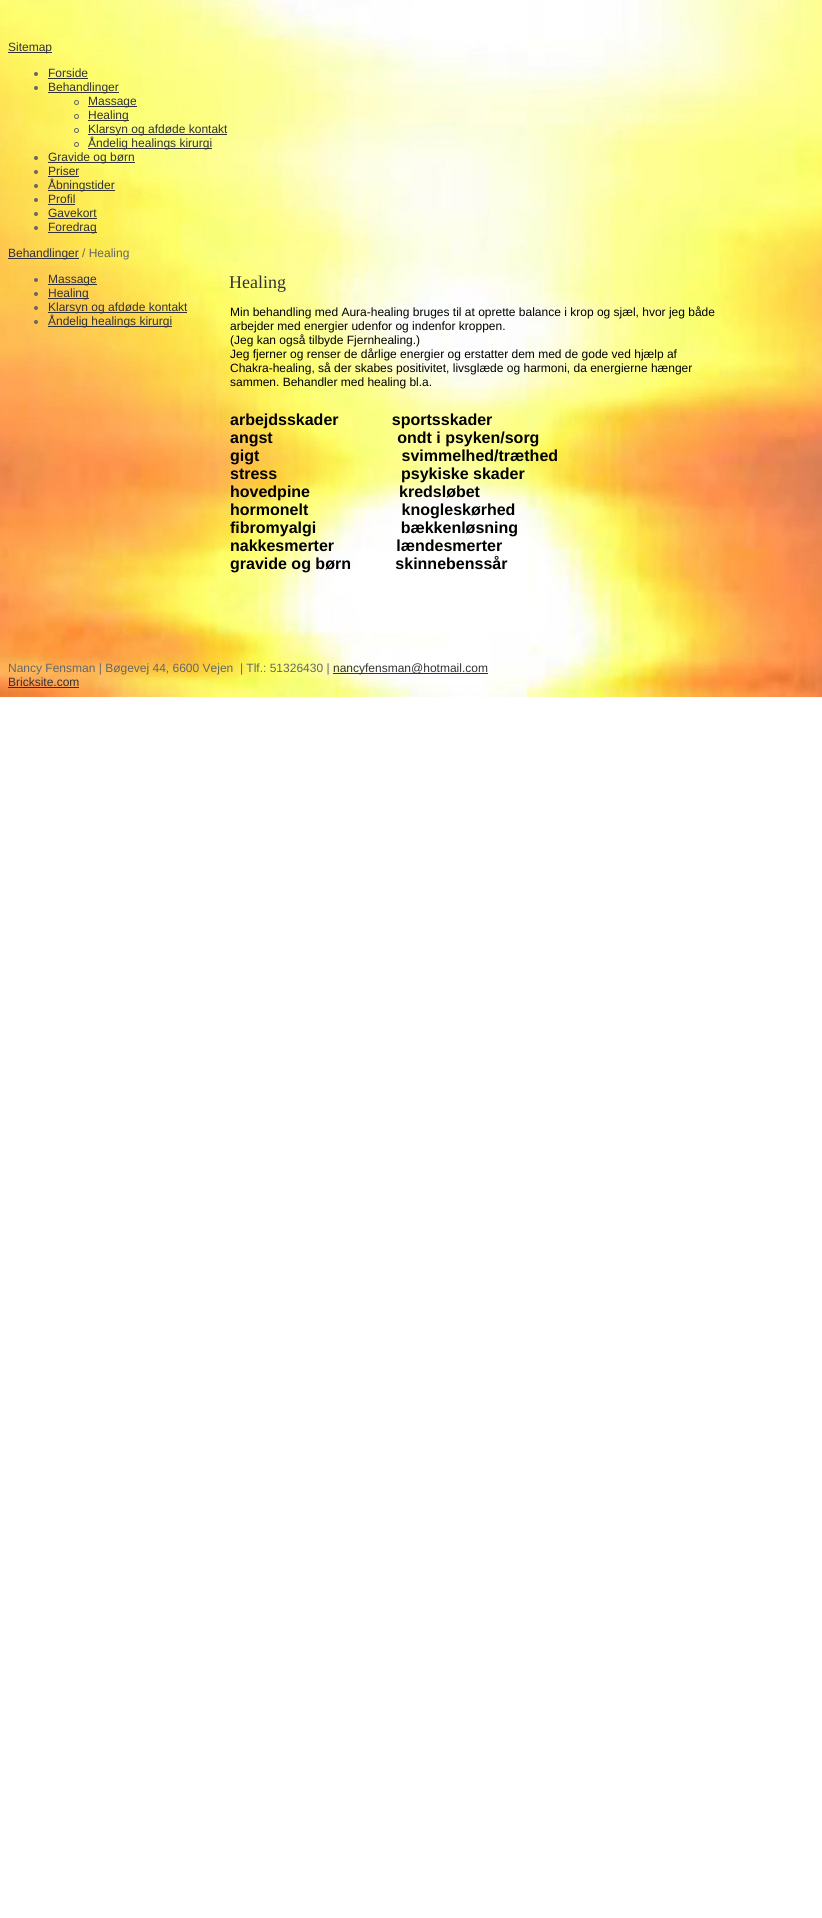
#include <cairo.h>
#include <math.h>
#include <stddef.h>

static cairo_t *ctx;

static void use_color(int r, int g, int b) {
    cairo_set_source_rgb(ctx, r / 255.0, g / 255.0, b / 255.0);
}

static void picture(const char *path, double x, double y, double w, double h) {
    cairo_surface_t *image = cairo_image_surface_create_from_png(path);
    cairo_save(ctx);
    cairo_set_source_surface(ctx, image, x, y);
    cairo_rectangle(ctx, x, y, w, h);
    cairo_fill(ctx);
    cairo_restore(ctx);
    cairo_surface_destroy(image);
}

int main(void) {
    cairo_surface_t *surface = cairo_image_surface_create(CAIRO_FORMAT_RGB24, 822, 1918);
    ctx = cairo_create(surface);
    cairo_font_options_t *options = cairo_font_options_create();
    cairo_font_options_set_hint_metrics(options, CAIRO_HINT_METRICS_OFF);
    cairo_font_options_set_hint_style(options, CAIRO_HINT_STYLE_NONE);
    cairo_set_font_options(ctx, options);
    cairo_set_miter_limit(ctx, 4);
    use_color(255, 255, 255);
    cairo_paint(ctx);
    picture("img1.png", 0, 0, 822, 697);
    use_color(51, 51, 51);
    cairo_rectangle(ctx, 8, 52, 44, 1);
    cairo_fill(ctx);
    cairo_select_font_face(ctx, "Liberation Sans", CAIRO_FONT_SLANT_NORMAL, CAIRO_FONT_WEIGHT_NORMAL);
    cairo_set_font_size(ctx, 12);
    cairo_move_to(ctx, 8, 51);
    cairo_show_text(ctx, "Sitemap");
    use_color(102, 102, 102);
    cairo_new_path(ctx);
    cairo_arc(ctx, 36, 74, 2, 0, 2 * M_PI);
    cairo_fill(ctx);
    use_color(51, 51, 51);
    cairo_move_to(ctx, 48, 77);
    cairo_show_text(ctx, "Forside");
    cairo_rectangle(ctx, 48, 78, 40, 1);
    cairo_fill(ctx);
    use_color(102, 102, 102);
    cairo_arc(ctx, 36, 88, 2, 0, 2 * M_PI);
    cairo_fill(ctx);
    use_color(51, 51, 51);
    cairo_rectangle(ctx, 48, 92, 71, 1);
    cairo_fill(ctx);
    cairo_move_to(ctx, 48, 91);
    cairo_show_text(ctx, "Behandlinger");
    cairo_new_path(ctx);
    cairo_arc(ctx, 76.5, 102.5, 2, 0, 2 * M_PI);
    use_color(102, 102, 102);
    cairo_set_line_width(ctx, 1);
    cairo_stroke(ctx);
    use_color(51, 51, 51);
    cairo_rectangle(ctx, 88, 106, 49, 1);
    cairo_fill(ctx);
    cairo_move_to(ctx, 88, 105);
    cairo_show_text(ctx, "Massage");
    cairo_new_path(ctx);
    cairo_arc(ctx, 76.5, 116.5, 2, 0, 2 * M_PI);
    use_color(102, 102, 102);
    cairo_stroke(ctx);
    use_color(51, 51, 51);
    cairo_rectangle(ctx, 88, 120, 41, 1);
    cairo_fill(ctx);
    cairo_move_to(ctx, 88, 119);
    cairo_show_text(ctx, "Healing");
    cairo_new_path(ctx);
    cairo_arc(ctx, 76.5, 130.5, 2, 0, 2 * M_PI);
    use_color(102, 102, 102);
    cairo_stroke(ctx);
    use_color(51, 51, 51);
    cairo_rectangle(ctx, 88, 134, 139, 1);
    cairo_fill(ctx);
    cairo_move_to(ctx, 88, 133);
    cairo_show_text(ctx, "Klarsyn og afdøde kontakt");
    cairo_new_path(ctx);
    cairo_arc(ctx, 76.5, 144.5, 2, 0, 2 * M_PI);
    use_color(102, 102, 102);
    cairo_stroke(ctx);
    use_color(51, 51, 51);
    cairo_rectangle(ctx, 88, 148, 124, 1);
    cairo_fill(ctx);
    cairo_move_to(ctx, 88, 147);
    cairo_show_text(ctx, "Åndelig healings kirurgi");
    use_color(102, 102, 102);
    cairo_new_path(ctx);
    cairo_arc(ctx, 36, 158, 2, 0, 2 * M_PI);
    cairo_fill(ctx);
    use_color(51, 51, 51);
    cairo_rectangle(ctx, 48, 162, 87, 1);
    cairo_fill(ctx);
    cairo_move_to(ctx, 48, 161);
    cairo_show_text(ctx, "Gravide og børn");
    use_color(102, 102, 102);
    cairo_new_path(ctx);
    cairo_arc(ctx, 36, 172, 2, 0, 2 * M_PI);
    cairo_fill(ctx);
    use_color(51, 51, 51);
    cairo_move_to(ctx, 48, 175);
    cairo_show_text(ctx, "Priser");
    cairo_rectangle(ctx, 48, 176, 31, 1);
    cairo_fill(ctx);
    use_color(102, 102, 102);
    cairo_arc(ctx, 36, 186, 2, 0, 2 * M_PI);
    cairo_fill(ctx);
    use_color(51, 51, 51);
    cairo_rectangle(ctx, 48, 190, 67, 1);
    cairo_fill(ctx);
    cairo_move_to(ctx, 48, 189);
    cairo_show_text(ctx, "Åbningstider");
    use_color(102, 102, 102);
    cairo_new_path(ctx);
    cairo_arc(ctx, 36, 200, 2, 0, 2 * M_PI);
    cairo_fill(ctx);
    use_color(51, 51, 51);
    cairo_move_to(ctx, 48, 203);
    cairo_show_text(ctx, "Profil");
    cairo_rectangle(ctx, 48, 204, 27, 1);
    cairo_fill(ctx);
    use_color(102, 102, 102);
    cairo_arc(ctx, 36, 214, 2, 0, 2 * M_PI);
    cairo_fill(ctx);
    use_color(51, 51, 51);
    cairo_move_to(ctx, 48, 217);
    cairo_show_text(ctx, "Gavekort");
    cairo_rectangle(ctx, 48, 218, 49, 1);
    cairo_fill(ctx);
    use_color(102, 102, 102);
    cairo_arc(ctx, 36, 228, 2, 0, 2 * M_PI);
    cairo_fill(ctx);
    use_color(51, 51, 51);
    cairo_rectangle(ctx, 48, 232, 49, 1);
    cairo_fill(ctx);
    cairo_move_to(ctx, 48, 231);
    cairo_show_text(ctx, "Foredrag");
    cairo_rectangle(ctx, 8, 258, 71, 1);
    cairo_fill(ctx);
    cairo_move_to(ctx, 8, 257);
    cairo_show_text(ctx, "Behandlinger");
    use_color(102, 102, 102);
    cairo_move_to(ctx, 82, 257);
    cairo_show_text(ctx, "/ Healing");
    cairo_new_path(ctx);
    cairo_arc(ctx, 36, 280, 2, 0, 2 * M_PI);
    cairo_fill(ctx);
    use_color(51, 51, 51);
    cairo_rectangle(ctx, 48, 284, 49, 1);
    cairo_fill(ctx);
    cairo_move_to(ctx, 48, 283);
    cairo_show_text(ctx, "Massage");
    use_color(102, 102, 102);
    cairo_new_path(ctx);
    cairo_arc(ctx, 36, 294, 2, 0, 2 * M_PI);
    cairo_fill(ctx);
    use_color(51, 51, 51);
    cairo_rectangle(ctx, 48, 298, 41, 1);
    cairo_fill(ctx);
    cairo_move_to(ctx, 48, 297);
    cairo_show_text(ctx, "Healing");
    use_color(102, 102, 102);
    cairo_new_path(ctx);
    cairo_arc(ctx, 36, 308, 2, 0, 2 * M_PI);
    cairo_fill(ctx);
    use_color(51, 51, 51);
    cairo_rectangle(ctx, 48, 312, 139, 1);
    cairo_fill(ctx);
    cairo_move_to(ctx, 48, 311);
    cairo_show_text(ctx, "Klarsyn og afdøde kontakt");
    use_color(102, 102, 102);
    cairo_new_path(ctx);
    cairo_arc(ctx, 36, 322, 2, 0, 2 * M_PI);
    cairo_fill(ctx);
    use_color(51, 51, 51);
    cairo_rectangle(ctx, 48, 326, 124, 1);
    cairo_fill(ctx);
    cairo_move_to(ctx, 48, 325);
    cairo_show_text(ctx, "Åndelig healings kirurgi");
    cairo_select_font_face(ctx, "Liberation Serif", CAIRO_FONT_SLANT_NORMAL, CAIRO_FONT_WEIGHT_NORMAL);
    cairo_set_font_size(ctx, 18);
    cairo_move_to(ctx, 229, 288);
    cairo_show_text(ctx, "Healing");
    cairo_select_font_face(ctx, "Liberation Sans", CAIRO_FONT_SLANT_NORMAL, CAIRO_FONT_WEIGHT_NORMAL);
    cairo_set_font_size(ctx, 12);
    use_color(0, 0, 0);
    cairo_move_to(ctx, 230, 316);
    cairo_show_text(ctx, "Min behandling med Aura-healing bruges til at oprette balance i krop og sjæl, hvor jeg både");
    cairo_move_to(ctx, 230, 330);
    cairo_show_text(ctx, "arbejder med energier udenfor og indenfor kroppen.");
    cairo_move_to(ctx, 230, 344);
    cairo_show_text(ctx, "(Jeg kan også tilbyde Fjernhealing.)");
    cairo_move_to(ctx, 230, 358);
    cairo_show_text(ctx, "Jeg fjerner og renser de dårlige energier og erstatter dem med de gode ved hjælp af");
    cairo_move_to(ctx, 230, 372);
    cairo_show_text(ctx, "Chakra-healing, så der skabes positivitet, livsglæde og harmoni, da energierne hænger");
    cairo_move_to(ctx, 230, 386);
    cairo_show_text(ctx, "sammen. Behandler med healing bl.a.");
    cairo_select_font_face(ctx, "Liberation Sans", CAIRO_FONT_SLANT_NORMAL, CAIRO_FONT_WEIGHT_BOLD);
    cairo_set_font_size(ctx, 16);
    cairo_move_to(ctx, 230, 425);
    cairo_show_text(ctx, "arbejdsskader            sportsskader");
    cairo_move_to(ctx, 230, 443);
    cairo_show_text(ctx, "angst                            ondt i psyken/sorg");
    cairo_move_to(ctx, 230, 461);
    cairo_show_text(ctx, "gigt                                svimmelhed/træthed");
    cairo_move_to(ctx, 230, 479);
    cairo_show_text(ctx, "stress");
    cairo_move_to(ctx, 401, 479);
    cairo_show_text(ctx, "psykiske skader");
    cairo_move_to(ctx, 230, 497);
    cairo_show_text(ctx, "hovedpine");
    cairo_move_to(ctx, 399, 497);
    cairo_show_text(ctx, "kredsløbet");
    cairo_move_to(ctx, 230, 515);
    cairo_show_text(ctx, "hormonelt                     knogleskørhed");
    cairo_move_to(ctx, 230, 533);
    cairo_show_text(ctx, "fibromyalgi                   bækkenløsning");
    cairo_move_to(ctx, 230, 551);
    cairo_show_text(ctx, "nakkesmerter              lændesmerter");
    cairo_move_to(ctx, 230, 569);
    cairo_show_text(ctx, "gravide og børn          skinnebenssår");
    cairo_select_font_face(ctx, "Liberation Sans", CAIRO_FONT_SLANT_NORMAL, CAIRO_FONT_WEIGHT_NORMAL);
    cairo_set_font_size(ctx, 12);
    use_color(102, 102, 102);
    cairo_move_to(ctx, 8, 672);
    cairo_show_text(ctx, "Nancy Fensman | Bøgevej 44, 6600 Vejen  | Tlf.: 51326430 |");
    use_color(51, 51, 51);
    cairo_rectangle(ctx, 333, 673, 155, 1);
    cairo_fill(ctx);
    cairo_move_to(ctx, 333, 672);
    cairo_show_text(ctx, "nancyfensman@hotmail.com");
    cairo_move_to(ctx, 8, 686);
    cairo_show_text(ctx, "Bricksite.com");
    cairo_rectangle(ctx, 8, 687, 71, 1);
    cairo_fill(ctx);
    cairo_surface_write_to_png(surface, "result.png");
    cairo_font_options_destroy(options);
    cairo_destroy(ctx);
    cairo_surface_destroy(surface);
    return 0;
}
